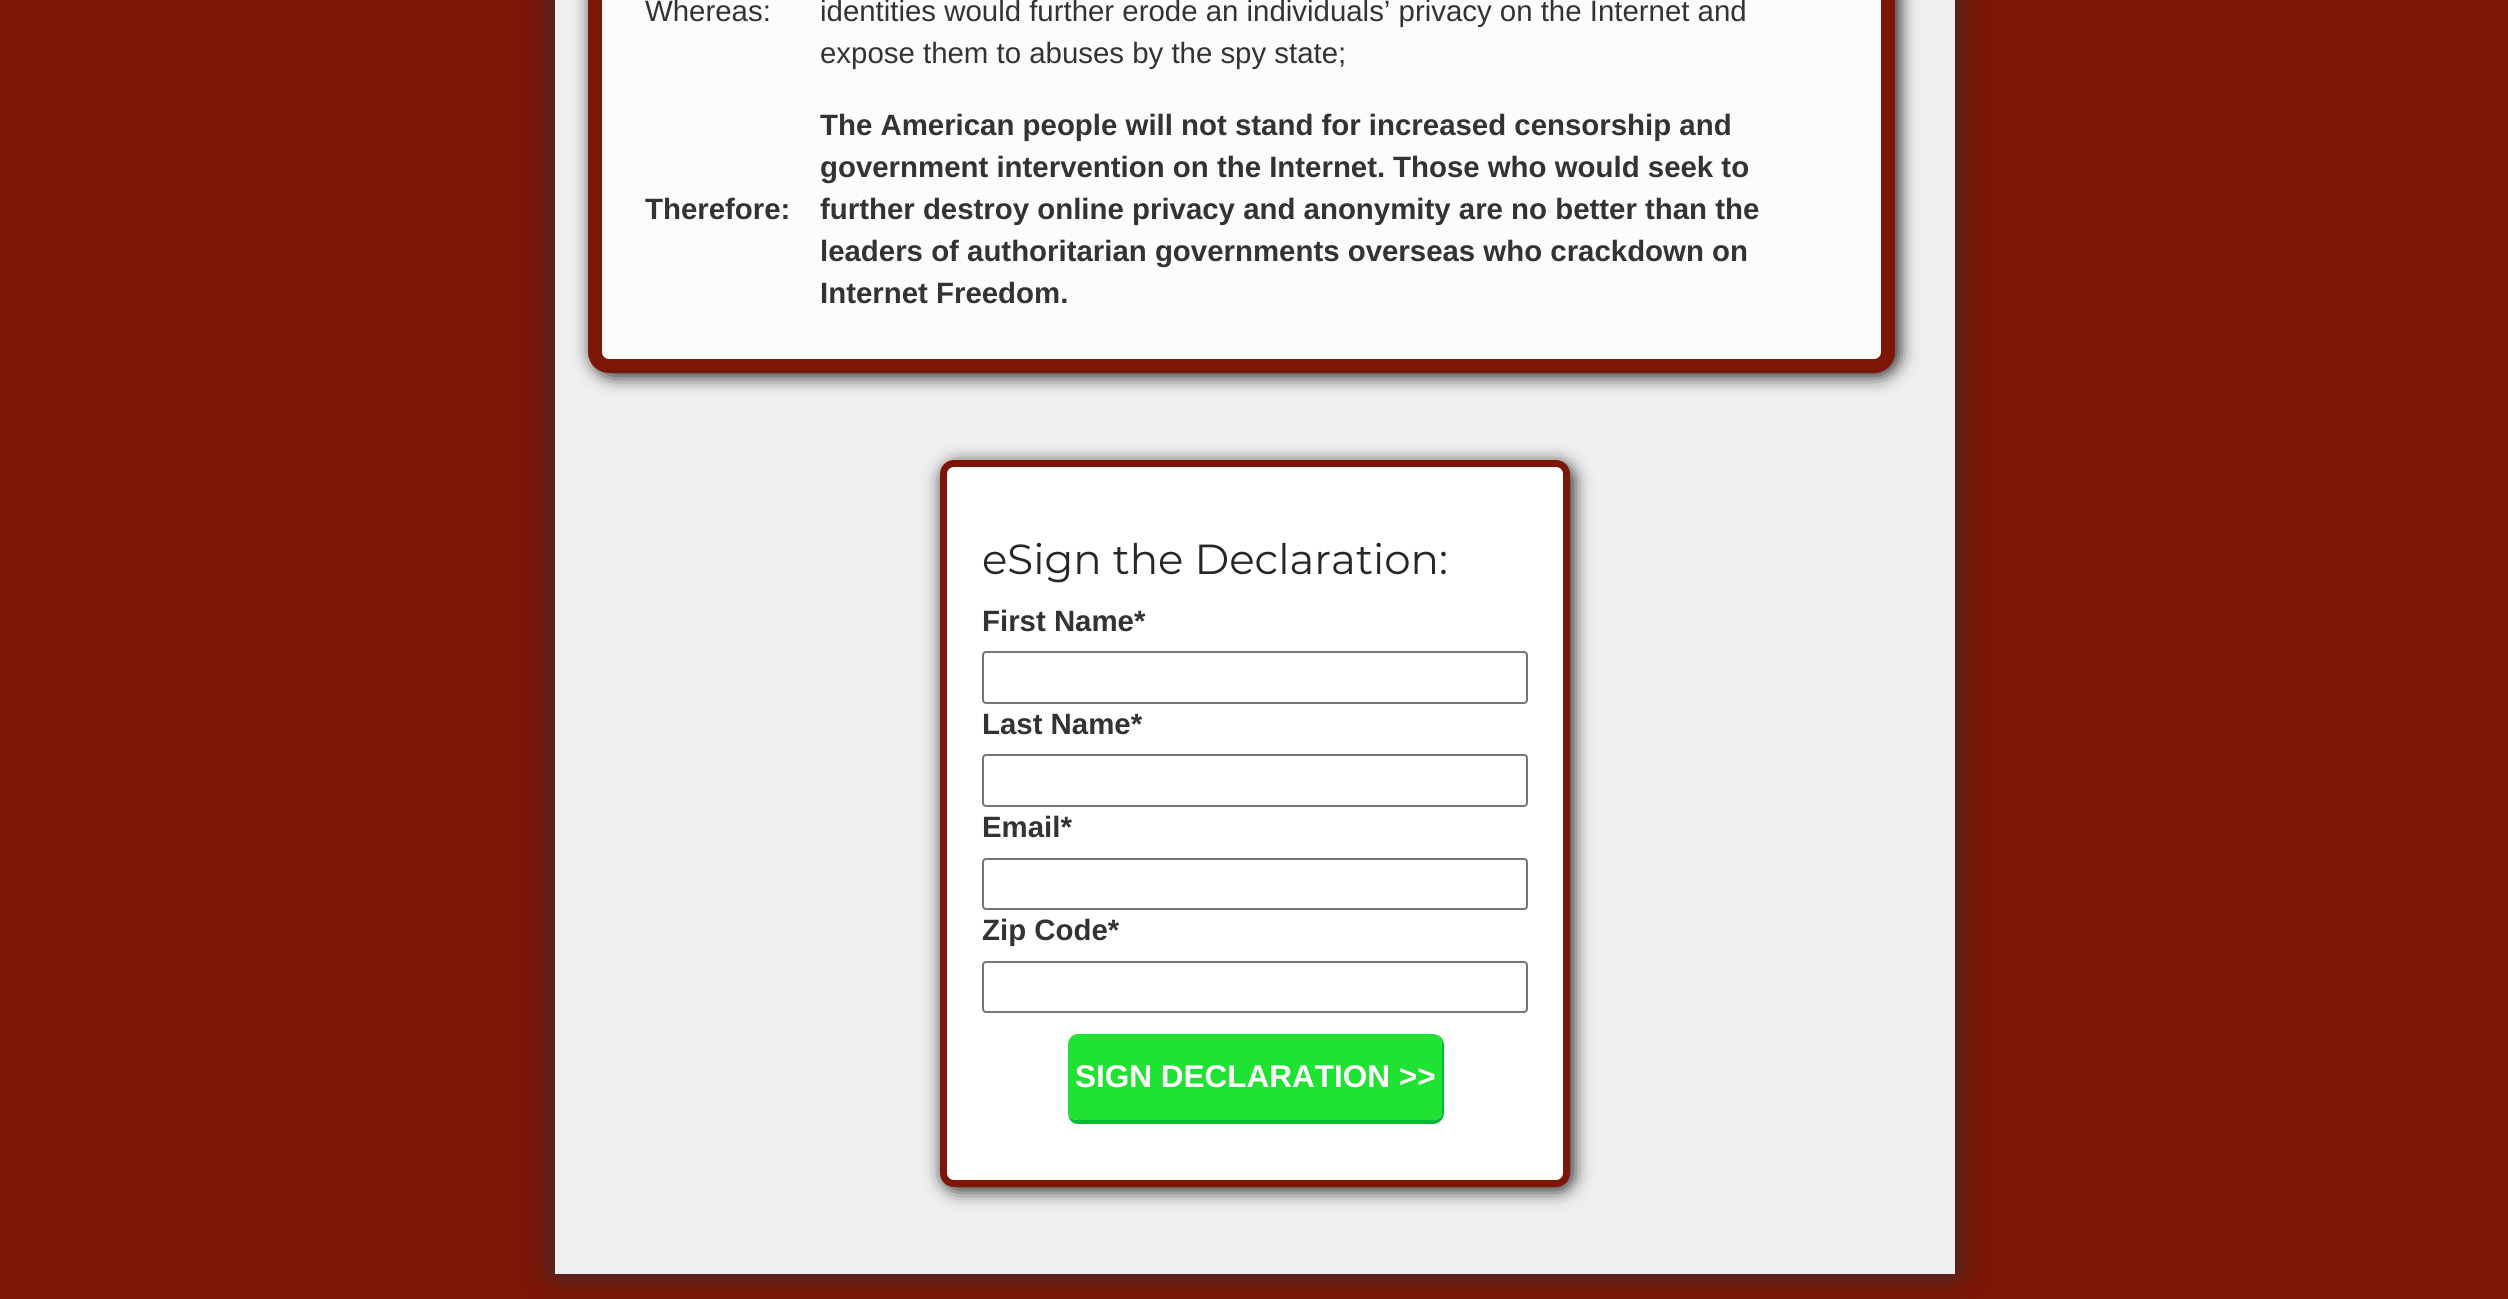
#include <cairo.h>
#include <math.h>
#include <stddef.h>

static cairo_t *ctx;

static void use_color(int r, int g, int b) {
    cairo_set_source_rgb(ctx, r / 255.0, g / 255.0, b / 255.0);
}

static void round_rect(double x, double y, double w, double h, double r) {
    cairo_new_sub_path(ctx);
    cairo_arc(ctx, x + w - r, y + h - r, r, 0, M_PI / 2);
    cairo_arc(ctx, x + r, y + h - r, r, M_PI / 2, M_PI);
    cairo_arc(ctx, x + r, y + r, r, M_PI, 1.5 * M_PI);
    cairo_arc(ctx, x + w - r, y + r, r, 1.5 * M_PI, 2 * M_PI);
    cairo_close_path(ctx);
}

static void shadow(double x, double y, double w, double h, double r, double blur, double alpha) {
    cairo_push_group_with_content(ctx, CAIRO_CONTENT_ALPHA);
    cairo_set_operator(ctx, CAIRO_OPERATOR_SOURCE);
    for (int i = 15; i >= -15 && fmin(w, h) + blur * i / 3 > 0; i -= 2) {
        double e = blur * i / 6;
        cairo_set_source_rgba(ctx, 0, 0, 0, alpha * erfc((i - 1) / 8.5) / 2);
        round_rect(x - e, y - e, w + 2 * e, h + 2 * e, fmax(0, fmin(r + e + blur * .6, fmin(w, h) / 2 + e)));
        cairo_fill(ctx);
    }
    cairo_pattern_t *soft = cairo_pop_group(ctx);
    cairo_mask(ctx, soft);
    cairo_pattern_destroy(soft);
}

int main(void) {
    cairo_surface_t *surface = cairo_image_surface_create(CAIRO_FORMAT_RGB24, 2508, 1299);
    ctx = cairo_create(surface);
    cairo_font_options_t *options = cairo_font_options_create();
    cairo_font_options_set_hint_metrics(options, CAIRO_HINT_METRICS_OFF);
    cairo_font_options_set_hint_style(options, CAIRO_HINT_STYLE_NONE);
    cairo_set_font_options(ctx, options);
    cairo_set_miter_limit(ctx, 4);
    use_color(124, 22, 7);
    cairo_paint(ctx);
    use_color(48, 48, 48);
    shadow(555, -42, 1400, 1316, 0, 14, 1);
    use_color(239, 239, 239);
    cairo_rectangle(ctx, 555, 0, 1400, 1274);
    cairo_fill(ctx);
    use_color(25, 25, 25);
    shadow(592, -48, 1307, 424, 21, 9, 1);
    use_color(252, 252, 252);
    round_rect(595, -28, 1293, 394, 14);
    cairo_fill_preserve(ctx);
    use_color(124, 22, 7);
    cairo_set_line_width(ctx, 14);
    cairo_stroke(ctx);
    cairo_select_font_face(ctx, "Liberation Sans", CAIRO_FONT_SLANT_NORMAL, CAIRO_FONT_WEIGHT_NORMAL);
    cairo_set_font_size(ctx, 29.4);
    use_color(51, 51, 51);
    cairo_move_to(ctx, 645, 21);
    cairo_show_text(ctx, "Whereas:");
    cairo_move_to(ctx, 820, 21);
    cairo_show_text(ctx, "identities would further erode an individuals’ privacy on the Internet and");
    cairo_move_to(ctx, 820, 63);
    cairo_show_text(ctx, "expose them to abuses by the spy state;");
    cairo_select_font_face(ctx, "Liberation Sans", CAIRO_FONT_SLANT_NORMAL, CAIRO_FONT_WEIGHT_BOLD);
    cairo_move_to(ctx, 645, 219);
    cairo_show_text(ctx, "Therefore:");
    cairo_move_to(ctx, 820, 135);
    cairo_show_text(ctx, "The American people will not stand for increased censorship and");
    cairo_move_to(ctx, 820, 177);
    cairo_show_text(ctx, "government intervention on the Internet.");
    cairo_move_to(ctx, 1393, 177);
    cairo_show_text(ctx, "Those who would seek to");
    cairo_move_to(ctx, 820, 219);
    cairo_show_text(ctx, "further destroy online privacy and anonymity are no better than the");
    cairo_move_to(ctx, 820, 261);
    cairo_show_text(ctx, "leaders of authoritarian governments overseas who crackdown on");
    cairo_move_to(ctx, 820, 303);
    cairo_show_text(ctx, "Internet Freedom.");
    use_color(25, 25, 25);
    shadow(943, 464, 630, 726, 14, 9, 1);
    use_color(255, 255, 255);
    round_rect(943.5, 463.5, 623, 720, 10.5);
    cairo_fill_preserve(ctx);
    use_color(124, 22, 7);
    cairo_set_line_width(ctx, 7);
    cairo_stroke(ctx);
    cairo_select_font_face(ctx, "Montserrat Thin", CAIRO_FONT_SLANT_NORMAL, CAIRO_FONT_WEIGHT_NORMAL);
    cairo_set_font_size(ctx, 42);
    use_color(39, 39, 39);
    cairo_move_to(ctx, 982, 574);
    cairo_show_text(ctx, "eSign the Declaration:");
    cairo_select_font_face(ctx, "Liberation Sans", CAIRO_FONT_SLANT_NORMAL, CAIRO_FONT_WEIGHT_BOLD);
    cairo_set_font_size(ctx, 29.4);
    use_color(51, 51, 51);
    cairo_move_to(ctx, 982, 631);
    cairo_show_text(ctx, "First Name*");
    round_rect(983, 652, 544, 51, 3);
    use_color(118, 118, 118);
    cairo_set_line_width(ctx, 2);
    cairo_stroke(ctx);
    use_color(51, 51, 51);
    cairo_move_to(ctx, 982, 734);
    cairo_show_text(ctx, "Last Name*");
    round_rect(983, 755, 544, 51, 3);
    use_color(118, 118, 118);
    cairo_stroke(ctx);
    use_color(51, 51, 51);
    cairo_move_to(ctx, 982, 837);
    cairo_show_text(ctx, "Email*");
    round_rect(983, 859, 544, 50, 3);
    use_color(118, 118, 118);
    cairo_stroke(ctx);
    use_color(51, 51, 51);
    cairo_move_to(ctx, 982, 940);
    cairo_show_text(ctx, "Zip Code*");
    round_rect(983, 962, 544, 50, 3);
    use_color(118, 118, 118);
    cairo_stroke(ctx);
    use_color(31, 226, 50);
    cairo_new_path(ctx);
    cairo_move_to(ctx, 1078, 1034);
    cairo_line_to(ctx, 1433, 1034);
    cairo_curve_to(ctx, 1438, 1034, 1442, 1039, 1442, 1045);
    cairo_line_to(ctx, 1442, 1113);
    cairo_curve_to(ctx, 1442, 1117, 1438, 1120, 1433, 1120);
    cairo_line_to(ctx, 1078, 1120);
    cairo_curve_to(ctx, 1072, 1120, 1068, 1117, 1068, 1113);
    cairo_line_to(ctx, 1068, 1045);
    cairo_curve_to(ctx, 1068, 1039, 1072, 1034, 1078, 1034);
    cairo_close_path(ctx);
    cairo_fill(ctx);
    use_color(0, 187, 49);
    cairo_set_fill_rule(ctx, CAIRO_FILL_RULE_EVEN_ODD);
    cairo_new_path(ctx);
    cairo_move_to(ctx, 1078, 1034);
    cairo_line_to(ctx, 1433, 1034);
    cairo_curve_to(ctx, 1439, 1034, 1444, 1039, 1444, 1045);
    cairo_line_to(ctx, 1444, 1113);
    cairo_curve_to(ctx, 1444, 1119, 1439, 1124, 1433, 1124);
    cairo_line_to(ctx, 1078, 1124);
    cairo_curve_to(ctx, 1072, 1124, 1068, 1119, 1068, 1113);
    cairo_line_to(ctx, 1068, 1045);
    cairo_curve_to(ctx, 1068, 1039, 1072, 1034, 1078, 1034);
    cairo_close_path(ctx);
    cairo_move_to(ctx, 1078, 1034);
    cairo_line_to(ctx, 1433, 1034);
    cairo_curve_to(ctx, 1438, 1034, 1442, 1039, 1442, 1045);
    cairo_line_to(ctx, 1442, 1113);
    cairo_curve_to(ctx, 1442, 1117, 1438, 1120, 1433, 1120);
    cairo_line_to(ctx, 1078, 1120);
    cairo_curve_to(ctx, 1072, 1120, 1068, 1117, 1068, 1113);
    cairo_line_to(ctx, 1068, 1045);
    cairo_curve_to(ctx, 1068, 1039, 1072, 1034, 1078, 1034);
    cairo_close_path(ctx);
    cairo_fill(ctx);
    cairo_set_font_size(ctx, 31.5);
    use_color(255, 255, 255);
    cairo_move_to(ctx, 1075, 1087);
    cairo_show_text(ctx, "SIGN DECLARATION >>");
    cairo_surface_write_to_png(surface, "result.png");
    cairo_font_options_destroy(options);
    cairo_destroy(ctx);
    cairo_surface_destroy(surface);
    return 0;
}
